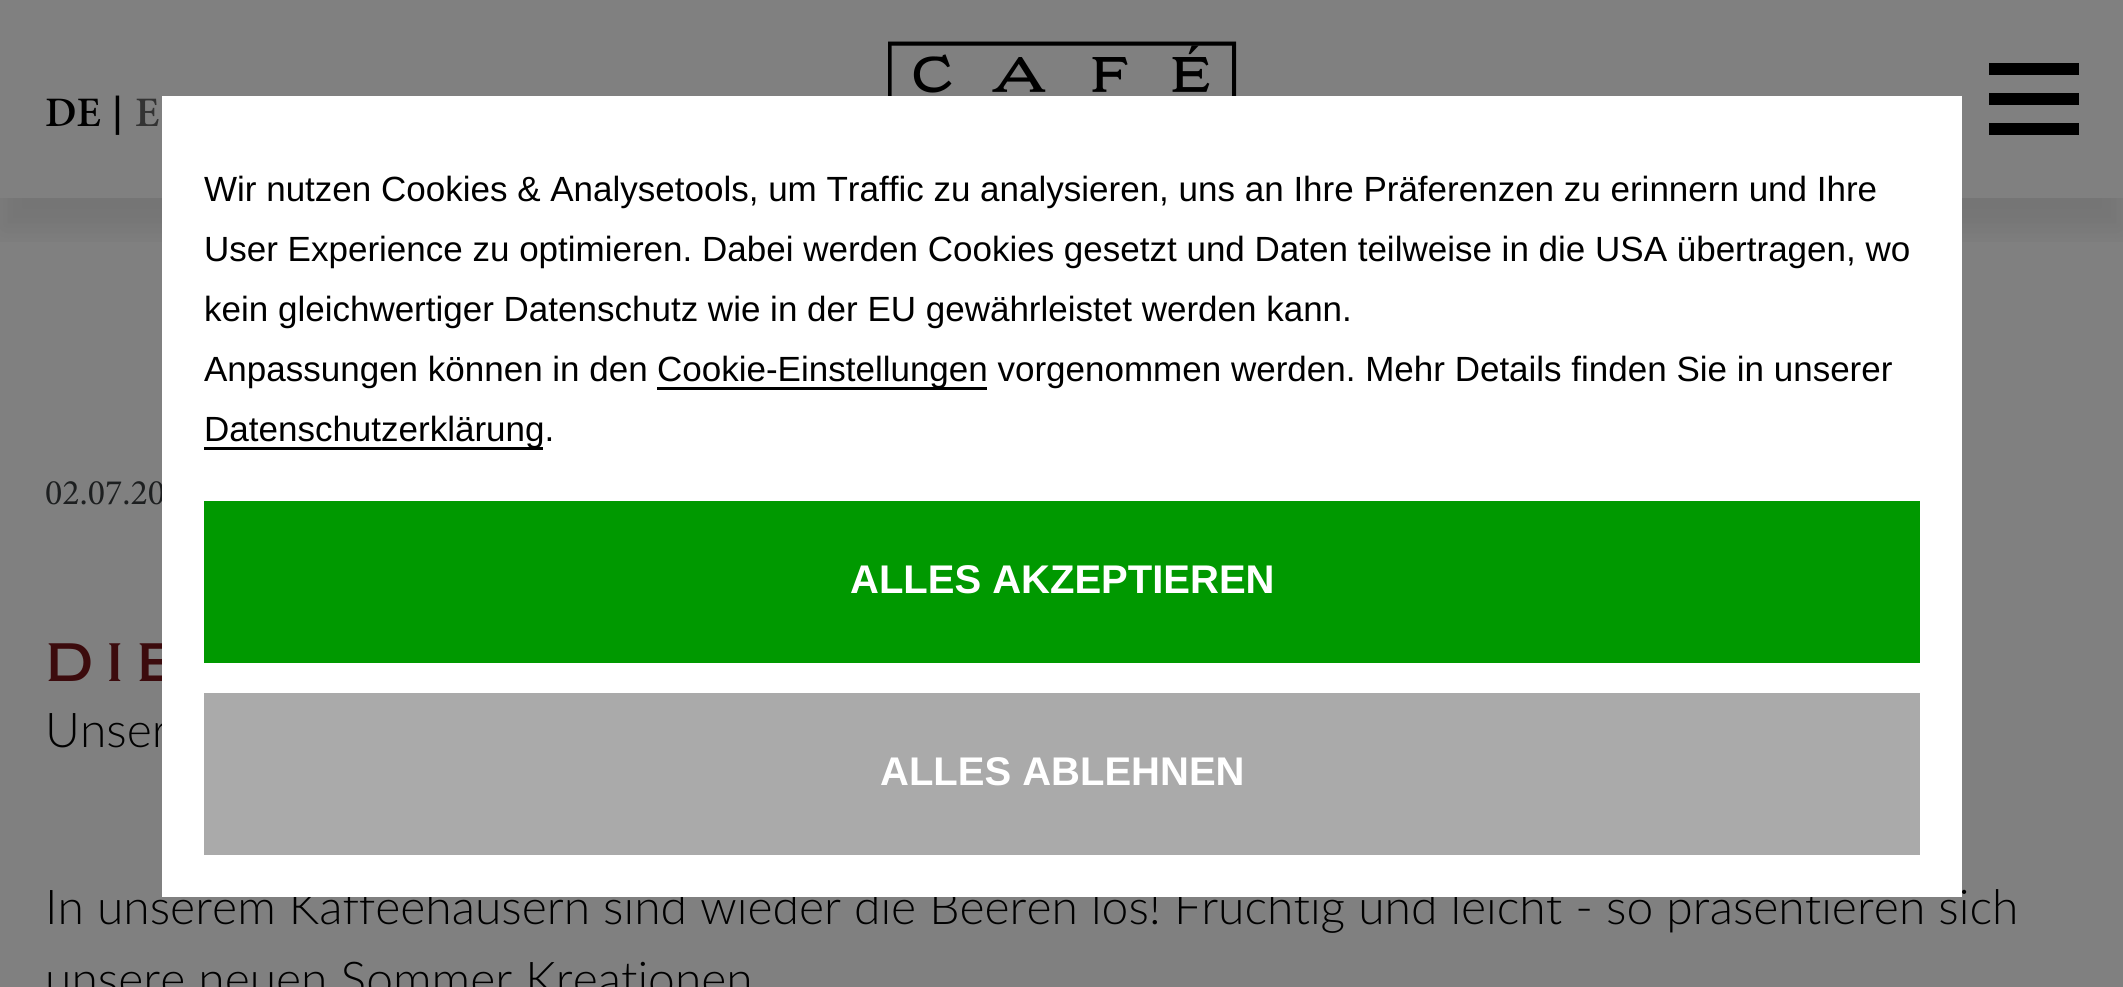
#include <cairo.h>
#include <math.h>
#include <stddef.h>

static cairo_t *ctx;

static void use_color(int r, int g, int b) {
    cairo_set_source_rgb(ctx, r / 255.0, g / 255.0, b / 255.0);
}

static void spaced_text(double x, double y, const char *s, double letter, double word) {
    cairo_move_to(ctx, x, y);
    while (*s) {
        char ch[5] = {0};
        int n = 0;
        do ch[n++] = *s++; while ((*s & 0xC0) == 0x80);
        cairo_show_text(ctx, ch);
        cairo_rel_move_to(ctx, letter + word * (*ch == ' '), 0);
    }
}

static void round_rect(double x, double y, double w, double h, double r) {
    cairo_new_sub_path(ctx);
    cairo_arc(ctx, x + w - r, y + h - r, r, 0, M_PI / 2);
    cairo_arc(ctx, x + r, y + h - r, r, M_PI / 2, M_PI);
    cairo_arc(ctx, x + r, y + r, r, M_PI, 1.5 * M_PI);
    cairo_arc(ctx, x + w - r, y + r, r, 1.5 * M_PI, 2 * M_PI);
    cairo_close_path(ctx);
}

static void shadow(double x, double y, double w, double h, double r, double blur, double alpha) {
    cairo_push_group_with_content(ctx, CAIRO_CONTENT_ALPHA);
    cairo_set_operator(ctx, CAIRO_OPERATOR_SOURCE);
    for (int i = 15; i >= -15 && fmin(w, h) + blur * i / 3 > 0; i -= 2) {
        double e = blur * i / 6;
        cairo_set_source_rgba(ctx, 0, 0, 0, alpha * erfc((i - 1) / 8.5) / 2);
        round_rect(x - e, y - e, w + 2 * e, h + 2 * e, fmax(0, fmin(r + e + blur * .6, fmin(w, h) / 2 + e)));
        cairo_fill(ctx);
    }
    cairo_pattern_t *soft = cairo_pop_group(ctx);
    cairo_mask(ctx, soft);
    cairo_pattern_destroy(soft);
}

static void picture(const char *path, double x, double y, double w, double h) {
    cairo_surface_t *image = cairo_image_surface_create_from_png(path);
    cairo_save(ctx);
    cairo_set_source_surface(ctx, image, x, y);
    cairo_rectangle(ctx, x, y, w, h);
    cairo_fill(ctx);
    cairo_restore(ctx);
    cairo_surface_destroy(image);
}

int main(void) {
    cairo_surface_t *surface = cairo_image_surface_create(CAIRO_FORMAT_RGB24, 2123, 987);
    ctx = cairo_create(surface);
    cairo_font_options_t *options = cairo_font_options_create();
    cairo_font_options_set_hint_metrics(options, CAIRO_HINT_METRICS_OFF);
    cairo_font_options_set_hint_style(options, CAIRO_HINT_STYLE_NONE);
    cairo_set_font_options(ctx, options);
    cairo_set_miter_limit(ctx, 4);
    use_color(128, 128, 128);
    cairo_paint(ctx);
    cairo_save(ctx);
    cairo_rectangle(ctx, 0, 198, 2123, 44);
    cairo_clip(ctx);
    use_color(0, 0, 0);
    shadow(0, 33, 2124, 198, 0, 15, 0.09);
    cairo_restore(ctx);
    cairo_select_font_face(ctx, "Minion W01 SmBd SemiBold", CAIRO_FONT_SLANT_NORMAL, CAIRO_FONT_WEIGHT_NORMAL);
    cairo_set_font_size(ctx, 42);
    use_color(0, 0, 0);
    cairo_move_to(ctx, 45, 126);
    cairo_show_text(ctx, "DE");
    cairo_select_font_face(ctx, "Liberation Sans", CAIRO_FONT_SLANT_NORMAL, CAIRO_FONT_WEIGHT_NORMAL);
    cairo_move_to(ctx, 112, 126);
    cairo_show_text(ctx, "|");
    cairo_select_font_face(ctx, "Minion W01 SmBd SemiBold", CAIRO_FONT_SLANT_NORMAL, CAIRO_FONT_WEIGHT_NORMAL);
    use_color(51, 51, 51);
    cairo_move_to(ctx, 135, 126);
    cairo_show_text(ctx, "E");
    picture("img1.png", 888, 41, 349, 55);
    use_color(0, 0, 0);
    cairo_rectangle(ctx, 1989, 93, 90, 12);
    cairo_fill(ctx);
    cairo_rectangle(ctx, 1989, 63, 90, 12);
    cairo_fill(ctx);
    cairo_rectangle(ctx, 1989, 123, 90, 12);
    cairo_fill(ctx);
    cairo_select_font_face(ctx, "Minion", CAIRO_FONT_SLANT_NORMAL, CAIRO_FONT_WEIGHT_NORMAL);
    cairo_set_font_size(ctx, 36);
    use_color(29, 31, 32);
    cairo_move_to(ctx, 45, 504);
    cairo_show_text(ctx, "02.07.20");
    cairo_select_font_face(ctx, "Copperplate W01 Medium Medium", CAIRO_FONT_SLANT_NORMAL, CAIRO_FONT_WEIGHT_NORMAL);
    cairo_set_font_size(ctx, 69);
    use_color(60, 11, 13);
    spaced_text(45, 681, "die", 12, 0);
    cairo_select_font_face(ctx, "Lato Light", CAIRO_FONT_SLANT_NORMAL, CAIRO_FONT_WEIGHT_NORMAL);
    cairo_set_font_size(ctx, 48);
    use_color(0, 0, 0);
    cairo_move_to(ctx, 45, 747);
    cairo_show_text(ctx, "Unser");
    cairo_move_to(ctx, 45, 924);
    cairo_show_text(ctx, "In unserem Kaffeehäusern sind wieder die Beeren los! Fruchtig und leicht - so präsentieren sich");
    use_color(255, 255, 255);
    cairo_rectangle(ctx, 162, 96, 1800, 801);
    cairo_fill(ctx);
    cairo_select_font_face(ctx, "Liberation Sans", CAIRO_FONT_SLANT_NORMAL, CAIRO_FONT_WEIGHT_NORMAL);
    cairo_set_font_size(ctx, 35);
    use_color(0, 0, 0);
    cairo_move_to(ctx, 204, 201);
    cairo_show_text(ctx, "Wir nutzen Cookies & Analysetools, um Traffic zu analysieren, uns an Ihre Präferenzen zu erinnern und Ihre");
    cairo_move_to(ctx, 204, 261);
    cairo_show_text(ctx, "User Experience zu optimieren. Dabei werden Cookies gesetzt und Daten teilweise in die USA übertragen, wo");
    cairo_move_to(ctx, 204, 321);
    cairo_show_text(ctx, "kein gleichwertiger Datenschutz wie in der EU gewährleistet werden kann.");
    cairo_move_to(ctx, 204, 381);
    cairo_show_text(ctx, "Anpassungen können in den");
    cairo_rectangle(ctx, 657, 387, 330, 3);
    cairo_fill(ctx);
    cairo_move_to(ctx, 657, 381);
    cairo_show_text(ctx, "Cookie-Einstellungen vorgenommen werden. Mehr Details finden Sie in unserer");
    cairo_rectangle(ctx, 204, 447, 339, 3);
    cairo_fill(ctx);
    cairo_move_to(ctx, 204, 441);
    cairo_show_text(ctx, "Datenschutzerklärung.");
    use_color(0, 153, 0);
    cairo_rectangle(ctx, 204, 501, 1716, 162);
    cairo_fill(ctx);
    cairo_select_font_face(ctx, "Liberation Sans", CAIRO_FONT_SLANT_NORMAL, CAIRO_FONT_WEIGHT_BOLD);
    cairo_set_font_size(ctx, 40);
    use_color(255, 255, 255);
    cairo_move_to(ctx, 850, 593);
    cairo_show_text(ctx, "ALLES AKZEPTIEREN");
    use_color(170, 170, 170);
    cairo_rectangle(ctx, 204, 693, 1716, 162);
    cairo_fill(ctx);
    use_color(255, 255, 255);
    cairo_move_to(ctx, 880, 785);
    cairo_show_text(ctx, "ALLES ABLEHNEN");
    cairo_select_font_face(ctx, "Lato Light", CAIRO_FONT_SLANT_NORMAL, CAIRO_FONT_WEIGHT_NORMAL);
    cairo_set_font_size(ctx, 48);
    use_color(0, 0, 0);
    cairo_move_to(ctx, 45, 996);
    cairo_show_text(ctx, "unsere neuen Sommer Kreationen");
    cairo_surface_write_to_png(surface, "result.png");
    cairo_font_options_destroy(options);
    cairo_destroy(ctx);
    cairo_surface_destroy(surface);
    return 0;
}
